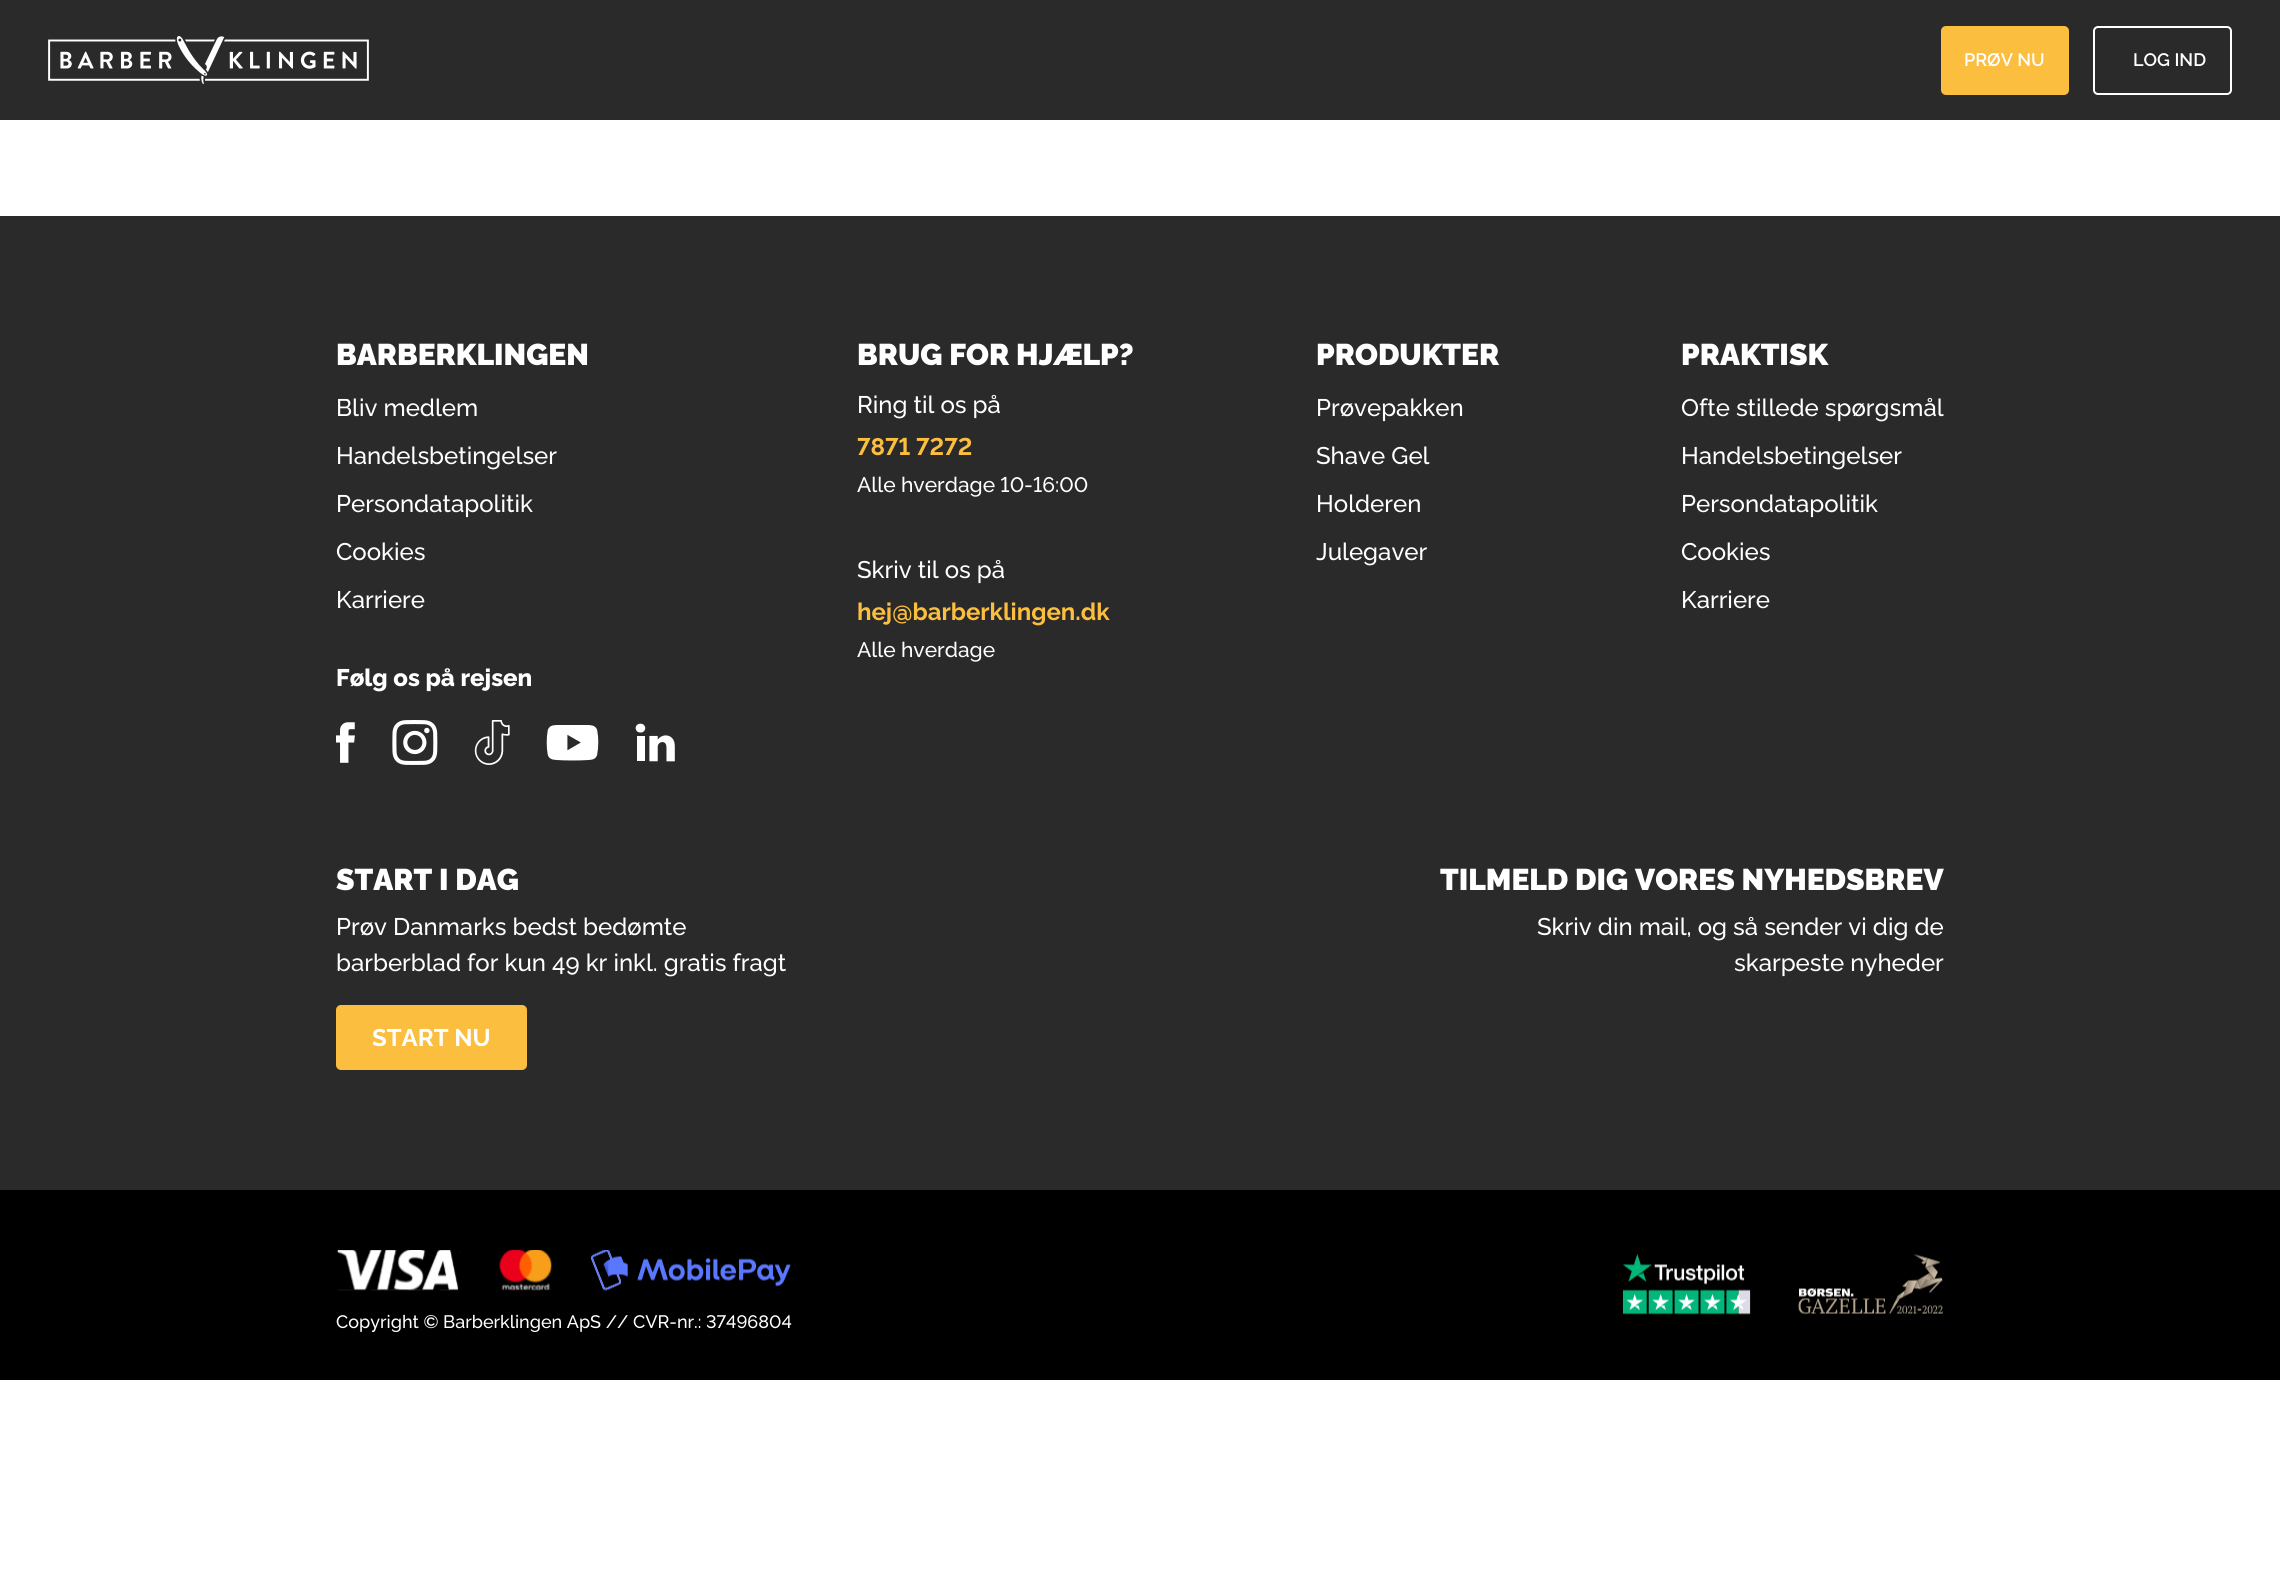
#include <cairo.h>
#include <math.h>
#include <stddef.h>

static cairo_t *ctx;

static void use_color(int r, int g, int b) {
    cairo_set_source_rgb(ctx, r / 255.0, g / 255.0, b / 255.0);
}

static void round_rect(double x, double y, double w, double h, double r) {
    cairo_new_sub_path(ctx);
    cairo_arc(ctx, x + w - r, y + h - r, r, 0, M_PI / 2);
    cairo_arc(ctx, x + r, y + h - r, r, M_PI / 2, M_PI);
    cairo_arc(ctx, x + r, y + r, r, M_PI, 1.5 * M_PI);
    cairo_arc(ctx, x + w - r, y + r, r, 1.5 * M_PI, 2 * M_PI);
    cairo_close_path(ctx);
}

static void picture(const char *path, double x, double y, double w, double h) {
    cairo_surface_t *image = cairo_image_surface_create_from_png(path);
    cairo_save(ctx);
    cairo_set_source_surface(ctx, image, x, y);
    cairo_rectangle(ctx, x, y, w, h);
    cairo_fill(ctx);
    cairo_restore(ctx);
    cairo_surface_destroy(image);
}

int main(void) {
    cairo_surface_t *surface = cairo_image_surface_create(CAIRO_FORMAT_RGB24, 2280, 1584);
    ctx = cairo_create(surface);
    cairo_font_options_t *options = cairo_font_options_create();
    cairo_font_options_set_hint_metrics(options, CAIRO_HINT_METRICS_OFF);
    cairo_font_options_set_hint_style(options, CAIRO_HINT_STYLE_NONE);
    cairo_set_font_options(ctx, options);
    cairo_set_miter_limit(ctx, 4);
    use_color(255, 255, 255);
    cairo_paint(ctx);
    use_color(42, 42, 42);
    cairo_rectangle(ctx, 0, 0, 2280, 120);
    cairo_fill(ctx);
    picture("img1.png", 48, 36, 321, 48);
    use_color(252, 190, 62);
    round_rect(1941, 26, 128, 69, 5);
    cairo_fill(ctx);
    cairo_select_font_face(ctx, "Raleway SemiBold", CAIRO_FONT_SLANT_NORMAL, CAIRO_FONT_WEIGHT_NORMAL);
    cairo_set_font_size(ctx, 18);
    use_color(255, 255, 255);
    cairo_move_to(ctx, 1964, 66);
    cairo_show_text(ctx, "PRØV NU");
    round_rect(2094, 27, 137, 67, 4);
    cairo_stroke(ctx);
    cairo_move_to(ctx, 2133, 66);
    cairo_show_text(ctx, "LOG IND");
    use_color(42, 42, 42);
    cairo_rectangle(ctx, 0, 216, 2280, 974);
    cairo_fill(ctx);
    cairo_select_font_face(ctx, "Raleway Black", CAIRO_FONT_SLANT_NORMAL, CAIRO_FONT_WEIGHT_NORMAL);
    cairo_set_font_size(ctx, 30);
    use_color(255, 255, 255);
    cairo_move_to(ctx, 336, 365);
    cairo_show_text(ctx, "BARBERKLINGEN");
    cairo_select_font_face(ctx, "Raleway Medium", CAIRO_FONT_SLANT_NORMAL, CAIRO_FONT_WEIGHT_NORMAL);
    cairo_set_font_size(ctx, 24);
    cairo_move_to(ctx, 336, 416);
    cairo_show_text(ctx, "Bliv medlem");
    cairo_move_to(ctx, 336, 464);
    cairo_show_text(ctx, "Handelsbetingelser");
    cairo_move_to(ctx, 336, 512);
    cairo_show_text(ctx, "Persondatapolitik");
    cairo_move_to(ctx, 336, 560);
    cairo_show_text(ctx, "Cookies");
    cairo_move_to(ctx, 336, 608);
    cairo_show_text(ctx, "Karriere");
    cairo_select_font_face(ctx, "Raleway ExtraBold", CAIRO_FONT_SLANT_NORMAL, CAIRO_FONT_WEIGHT_NORMAL);
    cairo_move_to(ctx, 336, 686);
    cairo_show_text(ctx, "Følg os på rejsen");
    picture("img2.png", 336, 722, 19, 41);
    picture("img3.png", 392, 720, 46, 45);
    picture("img4.png", 474, 720, 36, 45);
    picture("img5.png", 546, 725, 53, 36);
    picture("img6.png", 635, 723, 40, 39);
    cairo_select_font_face(ctx, "Raleway Black", CAIRO_FONT_SLANT_NORMAL, CAIRO_FONT_WEIGHT_NORMAL);
    cairo_set_font_size(ctx, 30);
    cairo_move_to(ctx, 857, 365);
    cairo_show_text(ctx, "BRUG FOR HJÆLP?");
    cairo_select_font_face(ctx, "Raleway Medium", CAIRO_FONT_SLANT_NORMAL, CAIRO_FONT_WEIGHT_NORMAL);
    cairo_set_font_size(ctx, 24);
    cairo_move_to(ctx, 857, 413);
    cairo_show_text(ctx, "Ring til os på");
    cairo_select_font_face(ctx, "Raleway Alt", CAIRO_FONT_SLANT_NORMAL, CAIRO_FONT_WEIGHT_BOLD);
    use_color(252, 190, 62);
    cairo_move_to(ctx, 857, 455);
    cairo_show_text(ctx, "7871 7272");
    cairo_select_font_face(ctx, "Raleway Alt Medium", CAIRO_FONT_SLANT_NORMAL, CAIRO_FONT_WEIGHT_NORMAL);
    cairo_set_font_size(ctx, 21);
    use_color(255, 255, 255);
    cairo_move_to(ctx, 857, 492);
    cairo_show_text(ctx, "Alle hverdage 10-16:00");
    cairo_select_font_face(ctx, "Raleway Medium", CAIRO_FONT_SLANT_NORMAL, CAIRO_FONT_WEIGHT_NORMAL);
    cairo_set_font_size(ctx, 24);
    cairo_move_to(ctx, 857, 578);
    cairo_show_text(ctx, "Skriv til os på");
    cairo_select_font_face(ctx, "Raleway", CAIRO_FONT_SLANT_NORMAL, CAIRO_FONT_WEIGHT_BOLD);
    use_color(252, 190, 62);
    cairo_move_to(ctx, 857, 620);
    cairo_show_text(ctx, "hej@barberklingen.dk");
    cairo_select_font_face(ctx, "Raleway Medium", CAIRO_FONT_SLANT_NORMAL, CAIRO_FONT_WEIGHT_NORMAL);
    cairo_set_font_size(ctx, 21);
    use_color(255, 255, 255);
    cairo_move_to(ctx, 857, 657);
    cairo_show_text(ctx, "Alle hverdage");
    cairo_select_font_face(ctx, "Raleway Black", CAIRO_FONT_SLANT_NORMAL, CAIRO_FONT_WEIGHT_NORMAL);
    cairo_set_font_size(ctx, 30);
    cairo_move_to(ctx, 1316, 365);
    cairo_show_text(ctx, "PRODUKTER");
    cairo_select_font_face(ctx, "Raleway Medium", CAIRO_FONT_SLANT_NORMAL, CAIRO_FONT_WEIGHT_NORMAL);
    cairo_set_font_size(ctx, 24);
    cairo_move_to(ctx, 1316, 416);
    cairo_show_text(ctx, "Prøvepakken");
    cairo_move_to(ctx, 1316, 464);
    cairo_show_text(ctx, "Shave Gel");
    cairo_move_to(ctx, 1316, 512);
    cairo_show_text(ctx, "Holderen");
    cairo_move_to(ctx, 1316, 560);
    cairo_show_text(ctx, "Julegaver");
    cairo_select_font_face(ctx, "Raleway Black", CAIRO_FONT_SLANT_NORMAL, CAIRO_FONT_WEIGHT_NORMAL);
    cairo_set_font_size(ctx, 30);
    cairo_move_to(ctx, 1681, 365);
    cairo_show_text(ctx, "PRAKTISK");
    cairo_select_font_face(ctx, "Raleway Medium", CAIRO_FONT_SLANT_NORMAL, CAIRO_FONT_WEIGHT_NORMAL);
    cairo_set_font_size(ctx, 24);
    cairo_move_to(ctx, 1681, 416);
    cairo_show_text(ctx, "Ofte stillede spørgsmål");
    cairo_move_to(ctx, 1681, 464);
    cairo_show_text(ctx, "Handelsbetingelser");
    cairo_move_to(ctx, 1681, 512);
    cairo_show_text(ctx, "Persondatapolitik");
    cairo_move_to(ctx, 1681, 560);
    cairo_show_text(ctx, "Cookies");
    cairo_move_to(ctx, 1681, 608);
    cairo_show_text(ctx, "Karriere");
    cairo_select_font_face(ctx, "Raleway Black", CAIRO_FONT_SLANT_NORMAL, CAIRO_FONT_WEIGHT_NORMAL);
    cairo_set_font_size(ctx, 30);
    cairo_move_to(ctx, 336, 890);
    cairo_show_text(ctx, "START I DAG");
    cairo_select_font_face(ctx, "Raleway Medium", CAIRO_FONT_SLANT_NORMAL, CAIRO_FONT_WEIGHT_NORMAL);
    cairo_set_font_size(ctx, 24);
    cairo_move_to(ctx, 336, 935);
    cairo_show_text(ctx, "Prøv Danmarks bedst bedømte");
    cairo_move_to(ctx, 336, 971);
    cairo_show_text(ctx, "barberblad for kun 49 kr inkl. gratis fragt");
    use_color(252, 190, 62);
    round_rect(336, 1005, 191, 65, 5);
    cairo_fill(ctx);
    cairo_select_font_face(ctx, "Raleway", CAIRO_FONT_SLANT_NORMAL, CAIRO_FONT_WEIGHT_BOLD);
    use_color(255, 255, 255);
    cairo_move_to(ctx, 372, 1046);
    cairo_show_text(ctx, "START NU");
    cairo_select_font_face(ctx, "Raleway Black", CAIRO_FONT_SLANT_NORMAL, CAIRO_FONT_WEIGHT_NORMAL);
    cairo_set_font_size(ctx, 30);
    cairo_move_to(ctx, 1440, 890);
    cairo_show_text(ctx, "TILMELD DIG VORES NYHEDSBREV");
    cairo_select_font_face(ctx, "Raleway Medium", CAIRO_FONT_SLANT_NORMAL, CAIRO_FONT_WEIGHT_NORMAL);
    cairo_set_font_size(ctx, 24);
    cairo_move_to(ctx, 1537, 935);
    cairo_show_text(ctx, "Skriv din mail, og så sender vi dig de");
    cairo_move_to(ctx, 1734, 971);
    cairo_show_text(ctx, "skarpeste nyheder");
    use_color(0, 0, 0);
    cairo_rectangle(ctx, 0, 1190, 2280, 190);
    cairo_fill(ctx);
    picture("img7.png", 1622, 1254, 321, 61);
    picture("img8.png", 337, 1250, 454, 41);
    cairo_select_font_face(ctx, "Raleway Alt Medium", CAIRO_FONT_SLANT_NORMAL, CAIRO_FONT_WEIGHT_NORMAL);
    cairo_set_font_size(ctx, 18);
    use_color(255, 255, 255);
    cairo_move_to(ctx, 336, 1328);
    cairo_show_text(ctx, "Copyright © Barberklingen ApS // CVR-nr.: 37496804");
    cairo_surface_write_to_png(surface, "result.png");
    cairo_font_options_destroy(options);
    cairo_destroy(ctx);
    cairo_surface_destroy(surface);
    return 0;
}
